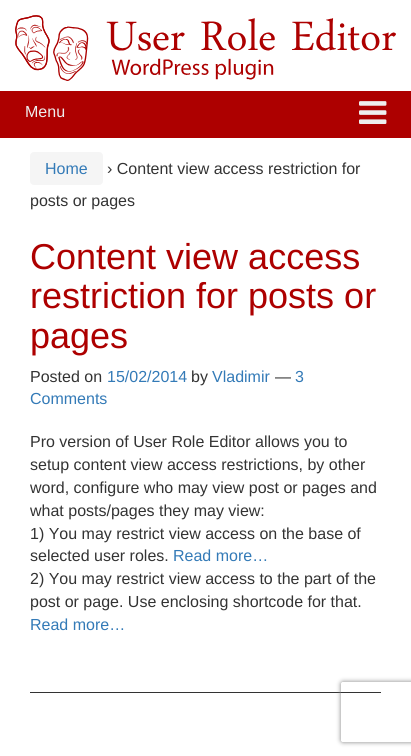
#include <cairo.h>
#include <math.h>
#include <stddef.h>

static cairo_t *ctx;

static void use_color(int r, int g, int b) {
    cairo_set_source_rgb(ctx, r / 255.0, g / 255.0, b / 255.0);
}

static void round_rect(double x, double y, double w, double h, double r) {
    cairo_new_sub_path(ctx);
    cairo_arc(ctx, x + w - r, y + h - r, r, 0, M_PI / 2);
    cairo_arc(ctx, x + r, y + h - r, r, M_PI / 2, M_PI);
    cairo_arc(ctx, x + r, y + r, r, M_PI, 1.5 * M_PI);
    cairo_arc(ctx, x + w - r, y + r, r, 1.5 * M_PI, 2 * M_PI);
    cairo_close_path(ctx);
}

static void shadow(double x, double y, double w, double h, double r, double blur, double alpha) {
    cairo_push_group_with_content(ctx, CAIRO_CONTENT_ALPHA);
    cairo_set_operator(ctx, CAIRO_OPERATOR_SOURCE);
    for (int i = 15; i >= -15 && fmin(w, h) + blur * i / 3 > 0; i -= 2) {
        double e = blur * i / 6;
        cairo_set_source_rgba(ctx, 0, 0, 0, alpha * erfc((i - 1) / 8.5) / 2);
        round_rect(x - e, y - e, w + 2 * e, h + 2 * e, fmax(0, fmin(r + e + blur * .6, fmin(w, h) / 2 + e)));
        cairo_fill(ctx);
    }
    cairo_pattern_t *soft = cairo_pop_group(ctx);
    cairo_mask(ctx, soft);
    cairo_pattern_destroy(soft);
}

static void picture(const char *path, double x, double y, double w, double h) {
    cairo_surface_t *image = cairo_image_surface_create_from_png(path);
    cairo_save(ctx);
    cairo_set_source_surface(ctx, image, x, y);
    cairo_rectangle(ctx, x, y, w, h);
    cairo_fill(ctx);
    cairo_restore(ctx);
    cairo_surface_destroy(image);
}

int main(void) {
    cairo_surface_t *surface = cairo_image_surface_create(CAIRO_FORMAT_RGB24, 411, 756);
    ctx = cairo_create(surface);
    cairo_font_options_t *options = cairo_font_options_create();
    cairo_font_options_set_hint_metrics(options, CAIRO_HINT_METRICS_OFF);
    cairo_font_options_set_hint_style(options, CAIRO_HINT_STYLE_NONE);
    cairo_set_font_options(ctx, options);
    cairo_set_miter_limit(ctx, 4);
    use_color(255, 255, 255);
    cairo_paint(ctx);
    picture("img1.png", 15, 15, 381, 66);
    use_color(173, 0, 0);
    cairo_rectangle(ctx, 0, 91, 411, 47);
    cairo_fill(ctx);
    cairo_select_font_face(ctx, "Liberation Sans", CAIRO_FONT_SLANT_NORMAL, CAIRO_FONT_WEIGHT_NORMAL);
    cairo_set_font_size(ctx, 16);
    use_color(238, 238, 238);
    cairo_move_to(ctx, 25, 117);
    cairo_show_text(ctx, "Menu");
    picture("img2.png", 359, 101, 28, 23);
    use_color(245, 245, 245);
    round_rect(30, 152, 73, 33, 4);
    cairo_fill(ctx);
    use_color(51, 122, 183);
    cairo_move_to(ctx, 45, 174);
    cairo_show_text(ctx, "Home");
    use_color(51, 51, 51);
    cairo_move_to(ctx, 107, 174);
    cairo_show_text(ctx, "› Content view access restriction for");
    cairo_move_to(ctx, 30, 206);
    cairo_show_text(ctx, "posts or pages");
    cairo_rectangle(ctx, 30, 692, 351, 1);
    cairo_fill(ctx);
    cairo_set_font_size(ctx, 36);
    use_color(173, 0, 0);
    cairo_move_to(ctx, 30, 269);
    cairo_show_text(ctx, "Content view access");
    cairo_move_to(ctx, 30, 308);
    cairo_show_text(ctx, "restriction for posts or");
    cairo_move_to(ctx, 30, 348);
    cairo_show_text(ctx, "pages");
    cairo_set_font_size(ctx, 16);
    use_color(51, 51, 51);
    cairo_move_to(ctx, 30, 382);
    cairo_show_text(ctx, "Posted on");
    use_color(51, 122, 183);
    cairo_move_to(ctx, 107, 382);
    cairo_show_text(ctx, "15/02/2014");
    use_color(51, 51, 51);
    cairo_move_to(ctx, 191, 382);
    cairo_show_text(ctx, "by");
    use_color(51, 122, 183);
    cairo_move_to(ctx, 212, 382);
    cairo_show_text(ctx, "Vladimir");
    use_color(51, 51, 51);
    cairo_move_to(ctx, 275, 382);
    cairo_show_text(ctx, "—");
    use_color(51, 122, 183);
    cairo_move_to(ctx, 295, 382);
    cairo_show_text(ctx, "3");
    cairo_move_to(ctx, 30, 404);
    cairo_show_text(ctx, "Comments");
    use_color(51, 51, 51);
    cairo_move_to(ctx, 30, 447);
    cairo_show_text(ctx, "Pro version of User Role Editor allows you to");
    cairo_move_to(ctx, 30, 470);
    cairo_show_text(ctx, "setup content view access restrictions, by other");
    cairo_move_to(ctx, 30, 493);
    cairo_show_text(ctx, "word, configure who may view post or pages and");
    cairo_move_to(ctx, 30, 516);
    cairo_show_text(ctx, "what posts/pages they may view:");
    cairo_move_to(ctx, 30, 539);
    cairo_show_text(ctx, "1) You may restrict view access on the base of");
    cairo_move_to(ctx, 30, 561);
    cairo_show_text(ctx, "selected user roles.");
    use_color(51, 122, 183);
    cairo_move_to(ctx, 173, 561);
    cairo_show_text(ctx, "Read more…");
    use_color(51, 51, 51);
    cairo_move_to(ctx, 30, 584);
    cairo_show_text(ctx, "2) You may restrict view access to the part of the");
    cairo_move_to(ctx, 30, 607);
    cairo_show_text(ctx, "post or page. Use enclosing shortcode for that.");
    use_color(51, 122, 183);
    cairo_move_to(ctx, 30, 630);
    cairo_show_text(ctx, "Read more…");
    cairo_save(ctx);
    cairo_set_fill_rule(ctx, CAIRO_FILL_RULE_EVEN_ODD);
    cairo_new_path(ctx);
    cairo_move_to(ctx, 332, 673);
    cairo_line_to(ctx, 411, 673);
    cairo_line_to(ctx, 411, 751);
    cairo_line_to(ctx, 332, 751);
    cairo_close_path(ctx);
    cairo_move_to(ctx, 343, 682);
    cairo_line_to(ctx, 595, 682);
    cairo_curve_to(ctx, 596, 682, 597, 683, 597, 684);
    cairo_line_to(ctx, 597, 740);
    cairo_curve_to(ctx, 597, 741, 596, 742, 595, 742);
    cairo_line_to(ctx, 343, 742);
    cairo_curve_to(ctx, 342, 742, 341, 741, 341, 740);
    cairo_line_to(ctx, 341, 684);
    cairo_curve_to(ctx, 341, 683, 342, 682, 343, 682);
    cairo_close_path(ctx);
    cairo_clip(ctx);
    use_color(128, 128, 128);
    shadow(341, 682, 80, 60, 2, 2.5, 1);
    cairo_restore(ctx);
    cairo_surface_write_to_png(surface, "result.png");
    cairo_font_options_destroy(options);
    cairo_destroy(ctx);
    cairo_surface_destroy(surface);
    return 0;
}
